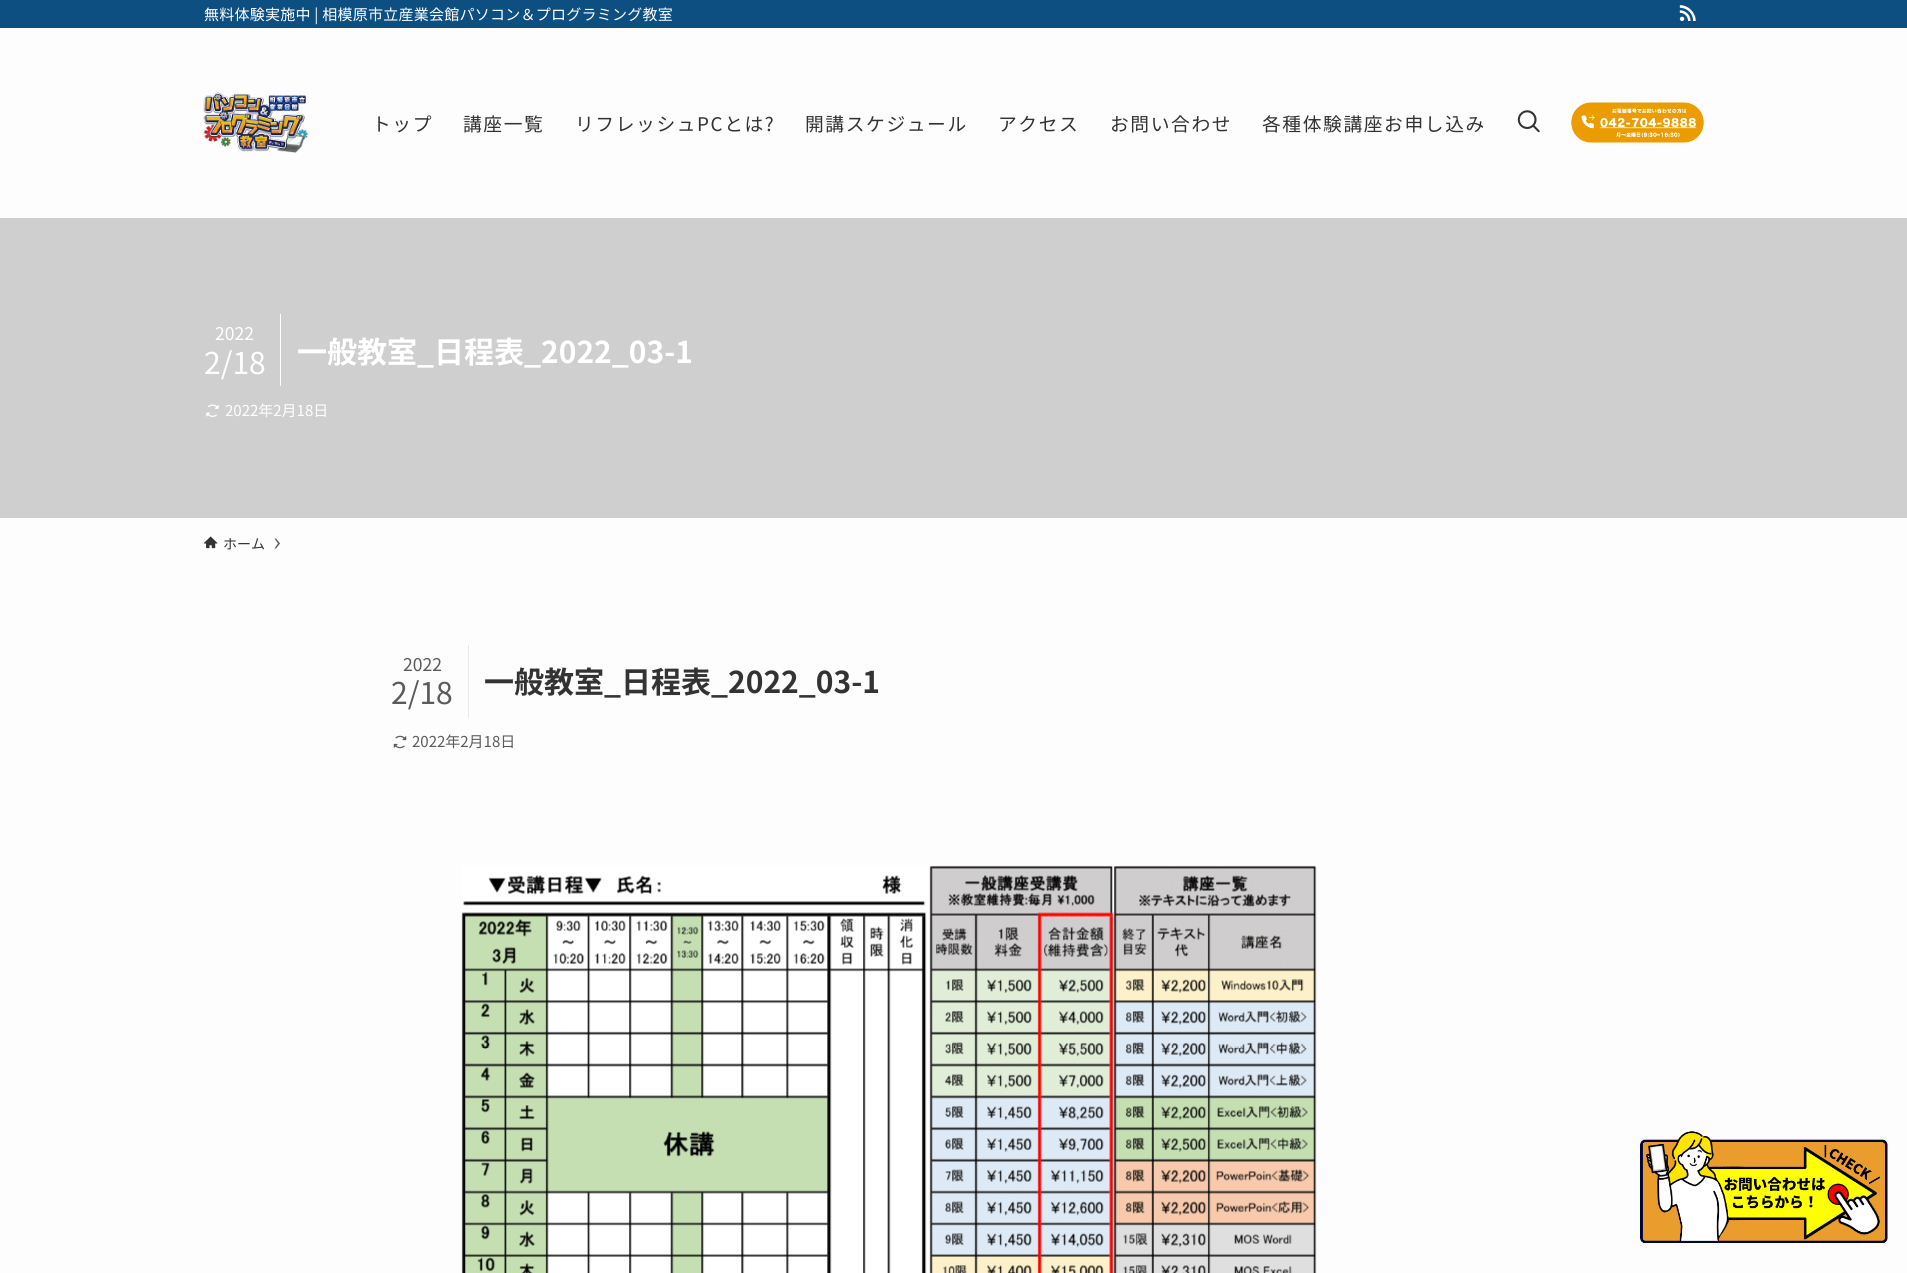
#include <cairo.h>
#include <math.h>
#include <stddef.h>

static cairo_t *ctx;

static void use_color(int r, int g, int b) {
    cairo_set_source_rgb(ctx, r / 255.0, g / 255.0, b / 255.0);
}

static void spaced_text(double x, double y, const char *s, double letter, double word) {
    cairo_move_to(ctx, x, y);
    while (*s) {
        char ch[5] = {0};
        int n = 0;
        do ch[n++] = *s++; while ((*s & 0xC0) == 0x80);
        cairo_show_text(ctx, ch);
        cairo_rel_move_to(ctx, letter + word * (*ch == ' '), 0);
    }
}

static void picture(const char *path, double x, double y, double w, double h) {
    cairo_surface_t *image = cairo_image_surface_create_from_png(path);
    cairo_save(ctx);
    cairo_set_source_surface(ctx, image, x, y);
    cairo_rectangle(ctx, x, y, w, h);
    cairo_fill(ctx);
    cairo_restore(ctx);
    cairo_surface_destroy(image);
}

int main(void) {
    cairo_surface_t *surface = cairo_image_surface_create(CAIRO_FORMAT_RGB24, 1907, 1273);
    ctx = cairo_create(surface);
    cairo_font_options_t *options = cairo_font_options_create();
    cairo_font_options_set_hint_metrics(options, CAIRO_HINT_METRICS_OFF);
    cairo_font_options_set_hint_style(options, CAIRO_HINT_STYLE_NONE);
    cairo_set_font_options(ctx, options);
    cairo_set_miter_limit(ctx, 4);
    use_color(253, 253, 253);
    cairo_paint(ctx);
    use_color(14, 79, 130);
    cairo_rectangle(ctx, 0, 0, 1907, 28);
    cairo_fill(ctx);
    cairo_select_font_face(ctx, "Noto Sans JP", CAIRO_FONT_SLANT_NORMAL, CAIRO_FONT_WEIGHT_NORMAL);
    cairo_set_font_size(ctx, 15);
    use_color(255, 255, 255);
    spaced_text(204, 20, "無料体験実施中 | 相模原市立産業会館パソコン＆プログラミング教室", 0.25, 0);
    picture("img1.png", 1679, 5, 17, 16);
    picture("img2.png", 203, 92, 105, 61);
    cairo_set_font_size(ctx, 18.75);
    use_color(51, 51, 51);
    spaced_text(372, 131, "トップ", 1.6, 0);
    spaced_text(463, 131, "講座一覧", 1.6, 0);
    spaced_text(575, 131, "リフレッシュPCとは?", 1.6, 0);
    spaced_text(805, 131, "開講スケジュール", 1.6, 0);
    spaced_text(998, 131, "アクセス", 1.6, 0);
    spaced_text(1110, 131, "お問い合わせ", 1.6, 0);
    spaced_text(1262, 131, "各種体験講座お申し込み", 1.6, 0);
    picture("img3.png", 1517, 110, 23, 23);
    picture("img4.png", 1571, 102, 133, 41);
    use_color(207, 207, 207);
    cairo_rectangle(ctx, 0, 218, 1907, 300);
    cairo_fill(ctx);
    use_color(255, 255, 255);
    cairo_rectangle(ctx, 280, 314, 1, 72);
    cairo_fill(ctx);
    cairo_set_font_size(ctx, 17.5);
    cairo_move_to(ctx, 215, 340);
    cairo_show_text(ctx, "2022");
    cairo_set_font_size(ctx, 30);
    cairo_move_to(ctx, 204, 374);
    cairo_show_text(ctx, "2/18");
    cairo_select_font_face(ctx, "Noto Sans JP", CAIRO_FONT_SLANT_NORMAL, CAIRO_FONT_WEIGHT_BOLD);
    cairo_move_to(ctx, 297, 363);
    cairo_show_text(ctx, "一般教室_日程表_2022_03-1");
    picture("img5.png", 206, 404, 13, 13);
    cairo_select_font_face(ctx, "Noto Sans JP", CAIRO_FONT_SLANT_NORMAL, CAIRO_FONT_WEIGHT_NORMAL);
    cairo_set_font_size(ctx, 15);
    cairo_move_to(ctx, 225, 416);
    cairo_show_text(ctx, "2022年2月18日");
    picture("img6.png", 203, 536, 15, 13);
    cairo_set_font_size(ctx, 14);
    use_color(51, 51, 51);
    cairo_move_to(ctx, 223, 549);
    cairo_show_text(ctx, "ホーム");
    use_color(91, 91, 91);
    cairo_new_path(ctx);
    cairo_move_to(ctx, 276, 538.5);
    cairo_line_to(ctx, 274.5, 538.5);
    cairo_line_to(ctx, 278, 543.5);
    cairo_line_to(ctx, 274.5, 548.5);
    cairo_line_to(ctx, 276, 548.5);
    cairo_line_to(ctx, 280, 543.5);
    cairo_close_path(ctx);
    cairo_fill(ctx);
    use_color(232, 232, 232);
    cairo_rectangle(ctx, 468, 645, 1, 73);
    cairo_fill(ctx);
    cairo_set_font_size(ctx, 17.5);
    use_color(91, 91, 91);
    cairo_move_to(ctx, 403, 671);
    cairo_show_text(ctx, "2022");
    cairo_set_font_size(ctx, 30);
    cairo_move_to(ctx, 391, 704);
    cairo_show_text(ctx, "2/18");
    cairo_select_font_face(ctx, "Noto Sans JP", CAIRO_FONT_SLANT_NORMAL, CAIRO_FONT_WEIGHT_BOLD);
    use_color(51, 51, 51);
    cairo_move_to(ctx, 484, 693);
    cairo_show_text(ctx, "一般教室_日程表_2022_03-1");
    picture("img7.png", 393, 735, 14, 14);
    cairo_select_font_face(ctx, "Noto Sans JP", CAIRO_FONT_SLANT_NORMAL, CAIRO_FONT_WEIGHT_NORMAL);
    cairo_set_font_size(ctx, 15);
    use_color(91, 91, 91);
    cairo_move_to(ctx, 412, 747);
    cairo_show_text(ctx, "2022年2月18日");
    picture("img8.png", 461, 865, 856, 408);
    picture("img9.png", 1640, 1131, 248, 112);
    cairo_surface_write_to_png(surface, "result.png");
    cairo_font_options_destroy(options);
    cairo_destroy(ctx);
    cairo_surface_destroy(surface);
    return 0;
}
